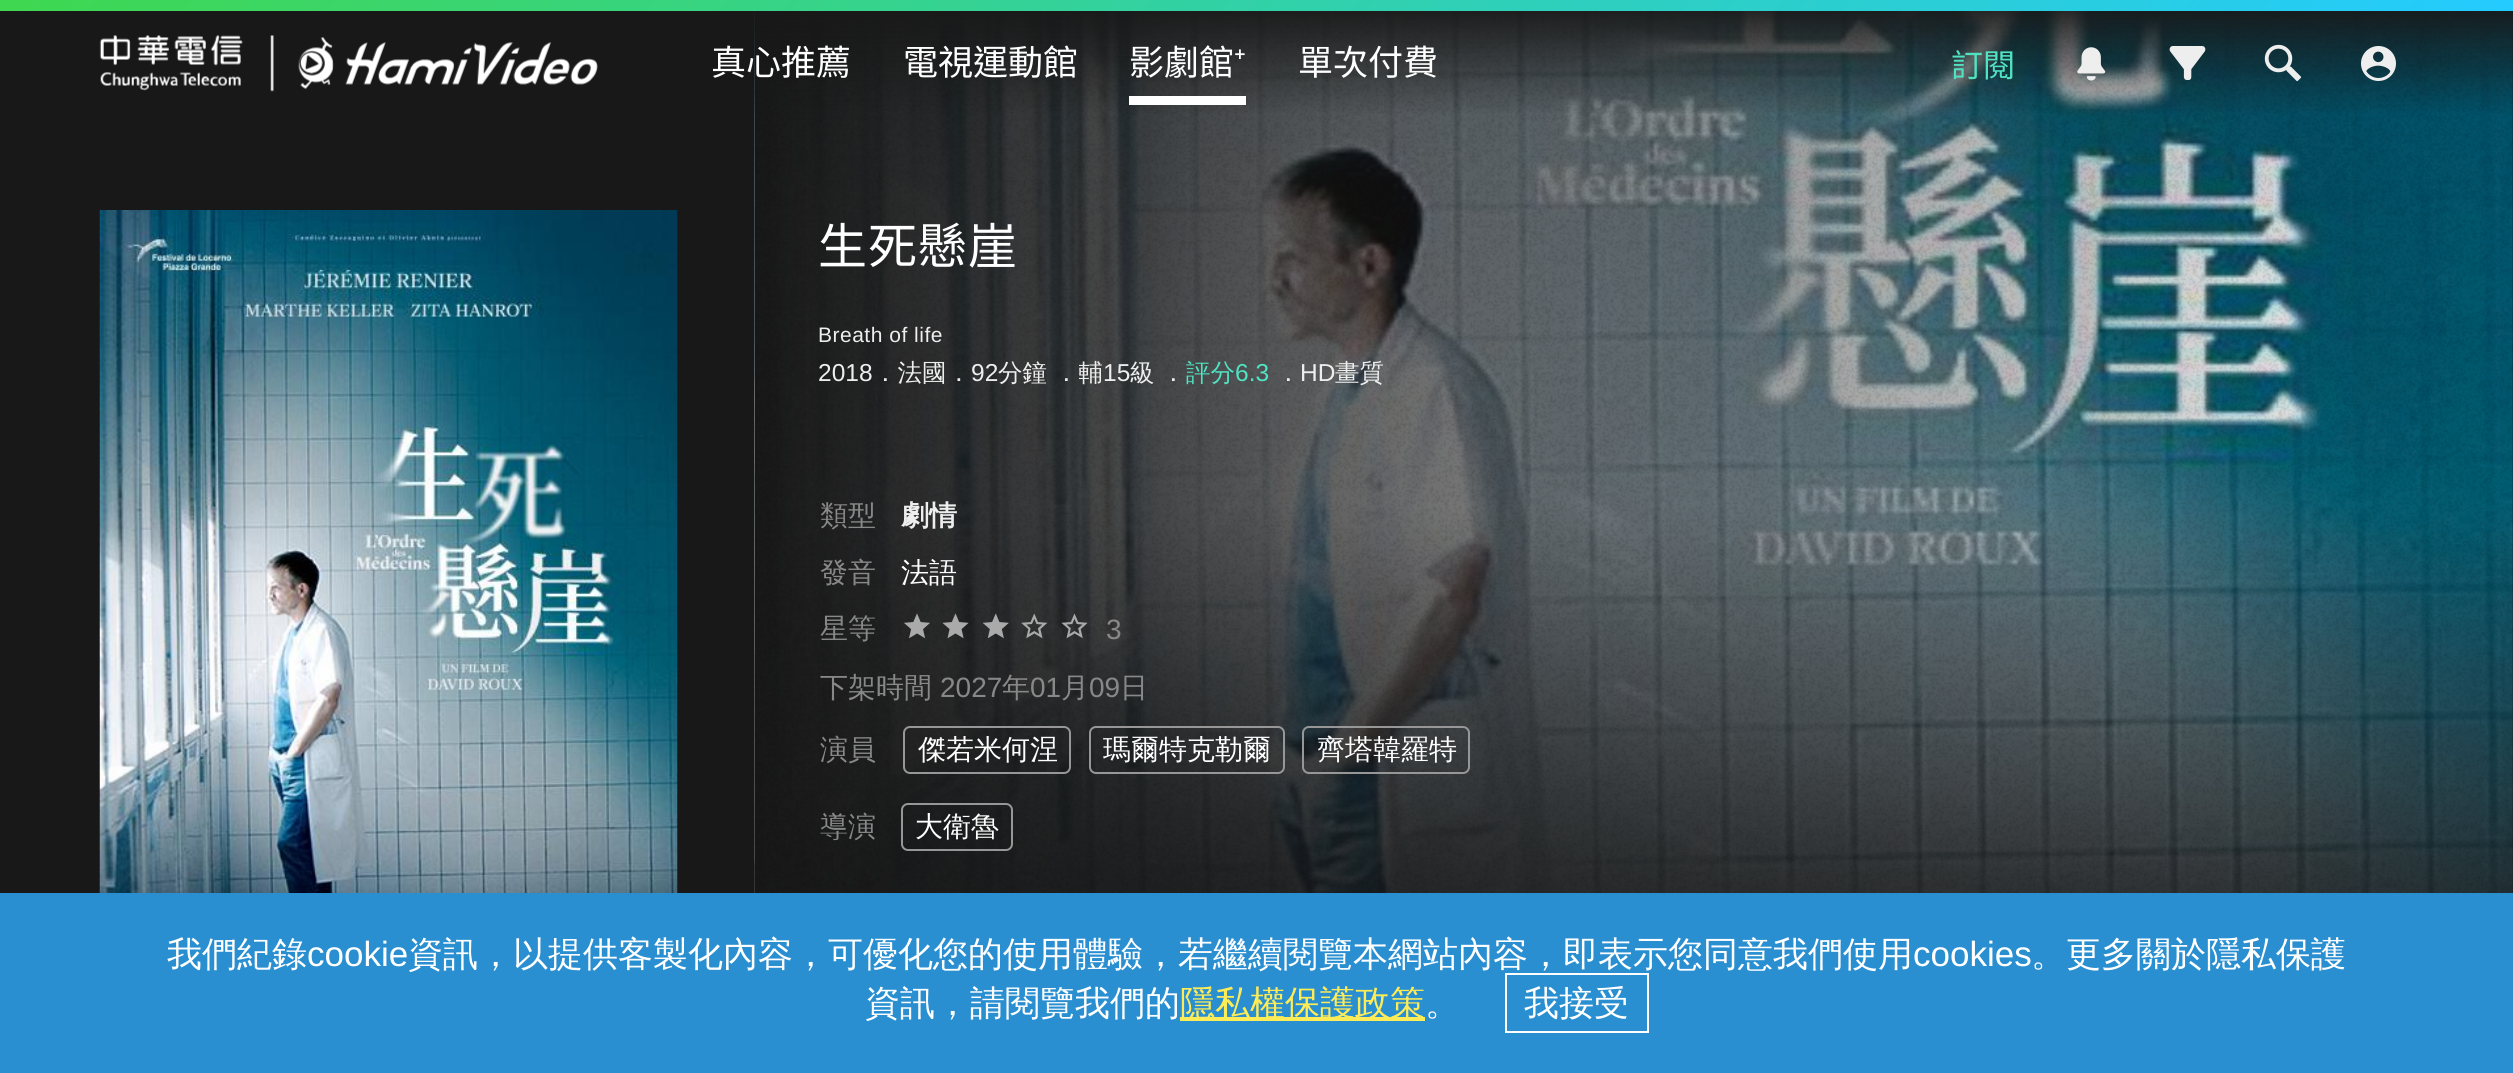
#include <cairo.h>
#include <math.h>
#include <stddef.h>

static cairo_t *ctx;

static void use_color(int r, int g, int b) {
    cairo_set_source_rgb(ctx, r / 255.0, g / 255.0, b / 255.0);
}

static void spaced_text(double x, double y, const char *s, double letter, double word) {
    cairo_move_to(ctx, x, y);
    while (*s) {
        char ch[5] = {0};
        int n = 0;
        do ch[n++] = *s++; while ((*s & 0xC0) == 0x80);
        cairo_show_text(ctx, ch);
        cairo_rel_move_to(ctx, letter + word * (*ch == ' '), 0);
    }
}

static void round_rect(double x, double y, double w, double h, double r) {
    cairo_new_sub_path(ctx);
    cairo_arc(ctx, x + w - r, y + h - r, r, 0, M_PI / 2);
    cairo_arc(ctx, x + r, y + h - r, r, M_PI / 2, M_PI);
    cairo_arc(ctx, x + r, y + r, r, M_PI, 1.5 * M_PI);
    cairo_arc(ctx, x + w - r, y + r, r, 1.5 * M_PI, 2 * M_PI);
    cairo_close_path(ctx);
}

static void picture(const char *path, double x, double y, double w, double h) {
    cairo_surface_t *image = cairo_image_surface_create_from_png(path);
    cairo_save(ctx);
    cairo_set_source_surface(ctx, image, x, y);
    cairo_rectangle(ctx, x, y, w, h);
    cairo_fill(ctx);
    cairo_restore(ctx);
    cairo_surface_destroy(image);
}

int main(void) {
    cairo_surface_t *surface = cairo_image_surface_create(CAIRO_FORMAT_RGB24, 2513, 1073);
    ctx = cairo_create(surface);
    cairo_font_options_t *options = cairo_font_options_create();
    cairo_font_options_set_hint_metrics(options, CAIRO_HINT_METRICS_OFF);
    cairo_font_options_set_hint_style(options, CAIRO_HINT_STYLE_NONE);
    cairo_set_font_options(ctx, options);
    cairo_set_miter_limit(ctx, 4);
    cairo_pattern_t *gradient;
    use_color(24, 24, 24);
    cairo_paint(ctx);
    picture("img6.png", 754, 11, 1759, 882);
    picture("img7.png", 754, 11, 1759, 882);
    gradient = cairo_pattern_create_linear(1257, 0, 1257, 116);
    cairo_pattern_add_color_stop_rgba(gradient, 0, 0.094, 0.094, 0.094, 1);
    cairo_pattern_add_color_stop_rgba(gradient, 1, 0.094, 0.094, 0.094, 0);
    cairo_set_source(ctx, gradient);
    cairo_pattern_destroy(gradient);
    cairo_rectangle(ctx, 754, 11, 1759, 102);
    cairo_fill(ctx);
    gradient = cairo_pattern_create_linear(619, -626, 1894, 636);
    cairo_pattern_add_color_stop_rgba(gradient, 0, 0.247, 0.843, 0.314, 1);
    cairo_pattern_add_color_stop_rgba(gradient, 1, 0.141, 0.796, 1, 1);
    cairo_set_source(ctx, gradient);
    cairo_pattern_destroy(gradient);
    cairo_rectangle(ctx, 0, 0, 2513, 11);
    cairo_fill(ctx);
    picture("img1.png", 99, 35, 499, 57);
    cairo_select_font_face(ctx, "Noto Sans TC Thin", CAIRO_FONT_SLANT_NORMAL, CAIRO_FONT_WEIGHT_NORMAL);
    cairo_set_font_size(ctx, 35);
    use_color(255, 255, 255);
    cairo_move_to(ctx, 711, 75);
    cairo_show_text(ctx, "真心推薦");
    cairo_move_to(ctx, 903, 75);
    cairo_show_text(ctx, "電視運動館");
    cairo_rectangle(ctx, 1129, 96, 117, 9);
    cairo_fill(ctx);
    cairo_move_to(ctx, 1129, 75);
    cairo_show_text(ctx, "影劇館");
    cairo_select_font_face(ctx, "Noto Sans", CAIRO_FONT_SLANT_NORMAL, CAIRO_FONT_WEIGHT_NORMAL);
    cairo_move_to(ctx, 1234, 75);
    cairo_show_text(ctx, "⁺");
    cairo_select_font_face(ctx, "Noto Sans TC Thin", CAIRO_FONT_SLANT_NORMAL, CAIRO_FONT_WEIGHT_NORMAL);
    cairo_move_to(ctx, 1298, 75);
    cairo_show_text(ctx, "單次付費");
    cairo_set_font_size(ctx, 32);
    use_color(80, 227, 194);
    cairo_move_to(ctx, 1951, 77);
    cairo_show_text(ctx, "訂閱");
    picture("img2.png", 2077, 47, 29, 34);
    picture("img3.png", 2169, 46, 37, 34);
    picture("img4.png", 2264, 44, 38, 38);
    picture("img5.png", 2361, 46, 35, 35);
    picture("img8.png", 99, 210, 579, 683);
    cairo_set_font_size(ctx, 49);
    use_color(255, 255, 255);
    spaced_text(818, 264, "生死懸崖", 1, 0);
    cairo_select_font_face(ctx, "Liberation Sans", CAIRO_FONT_SLANT_NORMAL, CAIRO_FONT_WEIGHT_NORMAL);
    cairo_set_font_size(ctx, 21);
    use_color(238, 238, 238);
    spaced_text(818, 342, "Breath of life", 0.5, 0);
    cairo_set_font_size(ctx, 24.5);
    cairo_move_to(ctx, 818, 381);
    cairo_show_text(ctx, "2018");
    cairo_select_font_face(ctx, "WenQuanYi Zen Hei Medium", CAIRO_FONT_SLANT_NORMAL, CAIRO_FONT_WEIGHT_NORMAL);
    cairo_move_to(ctx, 873, 381);
    cairo_show_text(ctx, "．法國．");
    cairo_select_font_face(ctx, "Liberation Sans", CAIRO_FONT_SLANT_NORMAL, CAIRO_FONT_WEIGHT_NORMAL);
    cairo_move_to(ctx, 971, 381);
    cairo_show_text(ctx, "92");
    cairo_select_font_face(ctx, "WenQuanYi Zen Hei Medium", CAIRO_FONT_SLANT_NORMAL, CAIRO_FONT_WEIGHT_NORMAL);
    cairo_move_to(ctx, 998, 381);
    cairo_show_text(ctx, "分鐘");
    cairo_move_to(ctx, 1054, 381);
    cairo_show_text(ctx, "．輔");
    cairo_select_font_face(ctx, "Liberation Sans", CAIRO_FONT_SLANT_NORMAL, CAIRO_FONT_WEIGHT_NORMAL);
    cairo_move_to(ctx, 1103, 381);
    cairo_show_text(ctx, "15");
    cairo_select_font_face(ctx, "WenQuanYi Zen Hei Medium", CAIRO_FONT_SLANT_NORMAL, CAIRO_FONT_WEIGHT_NORMAL);
    cairo_move_to(ctx, 1130, 381);
    cairo_show_text(ctx, "級");
    cairo_move_to(ctx, 1161, 381);
    cairo_show_text(ctx, "．");
    use_color(80, 227, 194);
    cairo_move_to(ctx, 1186, 381);
    cairo_show_text(ctx, "評分");
    cairo_select_font_face(ctx, "Liberation Sans", CAIRO_FONT_SLANT_NORMAL, CAIRO_FONT_WEIGHT_NORMAL);
    cairo_move_to(ctx, 1235, 381);
    cairo_show_text(ctx, "6.3");
    cairo_select_font_face(ctx, "WenQuanYi Zen Hei Medium", CAIRO_FONT_SLANT_NORMAL, CAIRO_FONT_WEIGHT_NORMAL);
    use_color(238, 238, 238);
    cairo_move_to(ctx, 1276, 381);
    cairo_show_text(ctx, "．");
    cairo_select_font_face(ctx, "Liberation Sans", CAIRO_FONT_SLANT_NORMAL, CAIRO_FONT_WEIGHT_NORMAL);
    cairo_move_to(ctx, 1300, 381);
    cairo_show_text(ctx, "HD");
    cairo_select_font_face(ctx, "WenQuanYi Zen Hei Medium", CAIRO_FONT_SLANT_NORMAL, CAIRO_FONT_WEIGHT_NORMAL);
    cairo_move_to(ctx, 1335, 381);
    cairo_show_text(ctx, "畫質");
    cairo_set_font_size(ctx, 28);
    use_color(136, 136, 136);
    cairo_move_to(ctx, 820, 525);
    cairo_show_text(ctx, "類型");
    cairo_select_font_face(ctx, "WenQuanYi Zen Hei", CAIRO_FONT_SLANT_NORMAL, CAIRO_FONT_WEIGHT_BOLD);
    use_color(238, 238, 238);
    cairo_move_to(ctx, 901, 525);
    cairo_show_text(ctx, "劇情");
    cairo_select_font_face(ctx, "WenQuanYi Zen Hei Medium", CAIRO_FONT_SLANT_NORMAL, CAIRO_FONT_WEIGHT_NORMAL);
    use_color(136, 136, 136);
    cairo_move_to(ctx, 820, 582);
    cairo_show_text(ctx, "發音");
    use_color(255, 255, 255);
    cairo_move_to(ctx, 901, 582);
    cairo_show_text(ctx, "法語");
    use_color(136, 136, 136);
    cairo_move_to(ctx, 820, 638);
    cairo_show_text(ctx, "星等");
    picture("img9.png", 904, 613, 26, 26);
    picture("img10.png", 942, 613, 27, 26);
    picture("img11.png", 982, 613, 27, 26);
    picture("img12.png", 1021, 613, 27, 26);
    picture("img13.png", 1061, 613, 27, 26);
    cairo_select_font_face(ctx, "Liberation Sans", CAIRO_FONT_SLANT_NORMAL, CAIRO_FONT_WEIGHT_NORMAL);
    cairo_move_to(ctx, 1106, 639);
    cairo_show_text(ctx, "3");
    cairo_select_font_face(ctx, "WenQuanYi Zen Hei Medium", CAIRO_FONT_SLANT_NORMAL, CAIRO_FONT_WEIGHT_NORMAL);
    cairo_move_to(ctx, 820, 697);
    cairo_show_text(ctx, "下架時間");
    cairo_select_font_face(ctx, "Liberation Sans", CAIRO_FONT_SLANT_NORMAL, CAIRO_FONT_WEIGHT_NORMAL);
    cairo_move_to(ctx, 940, 697);
    cairo_show_text(ctx, "2027");
    cairo_select_font_face(ctx, "WenQuanYi Zen Hei Medium", CAIRO_FONT_SLANT_NORMAL, CAIRO_FONT_WEIGHT_NORMAL);
    cairo_move_to(ctx, 1002, 697);
    cairo_show_text(ctx, "年");
    cairo_select_font_face(ctx, "Liberation Sans", CAIRO_FONT_SLANT_NORMAL, CAIRO_FONT_WEIGHT_NORMAL);
    cairo_move_to(ctx, 1030, 697);
    cairo_show_text(ctx, "01");
    cairo_select_font_face(ctx, "WenQuanYi Zen Hei Medium", CAIRO_FONT_SLANT_NORMAL, CAIRO_FONT_WEIGHT_NORMAL);
    cairo_move_to(ctx, 1061, 697);
    cairo_show_text(ctx, "月");
    cairo_select_font_face(ctx, "Liberation Sans", CAIRO_FONT_SLANT_NORMAL, CAIRO_FONT_WEIGHT_NORMAL);
    cairo_move_to(ctx, 1089, 697);
    cairo_show_text(ctx, "09");
    cairo_select_font_face(ctx, "WenQuanYi Zen Hei Medium", CAIRO_FONT_SLANT_NORMAL, CAIRO_FONT_WEIGHT_NORMAL);
    cairo_move_to(ctx, 1120, 697);
    cairo_show_text(ctx, "日");
    cairo_move_to(ctx, 820, 759);
    cairo_show_text(ctx, "演員");
    round_rect(904, 727, 166, 46, 6);
    use_color(151, 151, 151);
    cairo_stroke(ctx);
    use_color(255, 255, 255);
    cairo_move_to(ctx, 918, 759);
    cairo_show_text(ctx, "傑若米何涅");
    round_rect(1090, 727, 194, 46, 6);
    use_color(151, 151, 151);
    cairo_stroke(ctx);
    use_color(255, 255, 255);
    cairo_move_to(ctx, 1103, 759);
    cairo_show_text(ctx, "瑪爾特克勒爾");
    round_rect(1303, 727, 166, 46, 6);
    use_color(151, 151, 151);
    cairo_stroke(ctx);
    use_color(255, 255, 255);
    cairo_move_to(ctx, 1317, 759);
    cairo_show_text(ctx, "齊塔韓羅特");
    use_color(136, 136, 136);
    cairo_move_to(ctx, 820, 836);
    cairo_show_text(ctx, "導演");
    round_rect(902, 804, 110, 46, 6);
    use_color(151, 151, 151);
    cairo_stroke(ctx);
    use_color(255, 255, 255);
    cairo_move_to(ctx, 915, 836);
    cairo_show_text(ctx, "大衛魯");
    use_color(41, 143, 209);
    cairo_rectangle(ctx, 0, 893, 2513, 180);
    cairo_fill(ctx);
    cairo_set_font_size(ctx, 35);
    use_color(255, 255, 255);
    cairo_move_to(ctx, 167, 966);
    cairo_show_text(ctx, "我們紀錄");
    cairo_select_font_face(ctx, "Liberation Sans", CAIRO_FONT_SLANT_NORMAL, CAIRO_FONT_WEIGHT_NORMAL);
    cairo_move_to(ctx, 307, 966);
    cairo_show_text(ctx, "cookie");
    cairo_select_font_face(ctx, "WenQuanYi Zen Hei Medium", CAIRO_FONT_SLANT_NORMAL, CAIRO_FONT_WEIGHT_NORMAL);
    cairo_move_to(ctx, 408, 966);
    cairo_show_text(ctx, "資訊，以提供客製化內容，可優化您的使用體驗，若繼續閱覽本網站內容，即表示您同意我們使用");
    cairo_select_font_face(ctx, "Liberation Sans", CAIRO_FONT_SLANT_NORMAL, CAIRO_FONT_WEIGHT_NORMAL);
    cairo_move_to(ctx, 1913, 966);
    cairo_show_text(ctx, "cookies");
    cairo_select_font_face(ctx, "WenQuanYi Zen Hei Medium", CAIRO_FONT_SLANT_NORMAL, CAIRO_FONT_WEIGHT_NORMAL);
    cairo_move_to(ctx, 2031, 966);
    cairo_show_text(ctx, "。更多關於隱私保護");
    cairo_move_to(ctx, 865, 1015);
    cairo_show_text(ctx, "資訊，請閱覽我們的");
    use_color(253, 236, 87);
    cairo_rectangle(ctx, 1180, 1017, 245, 4);
    cairo_fill(ctx);
    cairo_move_to(ctx, 1180, 1015);
    cairo_show_text(ctx, "隱私權保護政策");
    use_color(255, 255, 255);
    cairo_move_to(ctx, 1425, 1015);
    cairo_show_text(ctx, "。");
    cairo_rectangle(ctx, 1506, 974, 142, 58);
    cairo_stroke(ctx);
    cairo_move_to(ctx, 1524, 1015);
    cairo_show_text(ctx, "我接受");
    cairo_surface_write_to_png(surface, "result.png");
    cairo_font_options_destroy(options);
    cairo_destroy(ctx);
    cairo_surface_destroy(surface);
    return 0;
}
